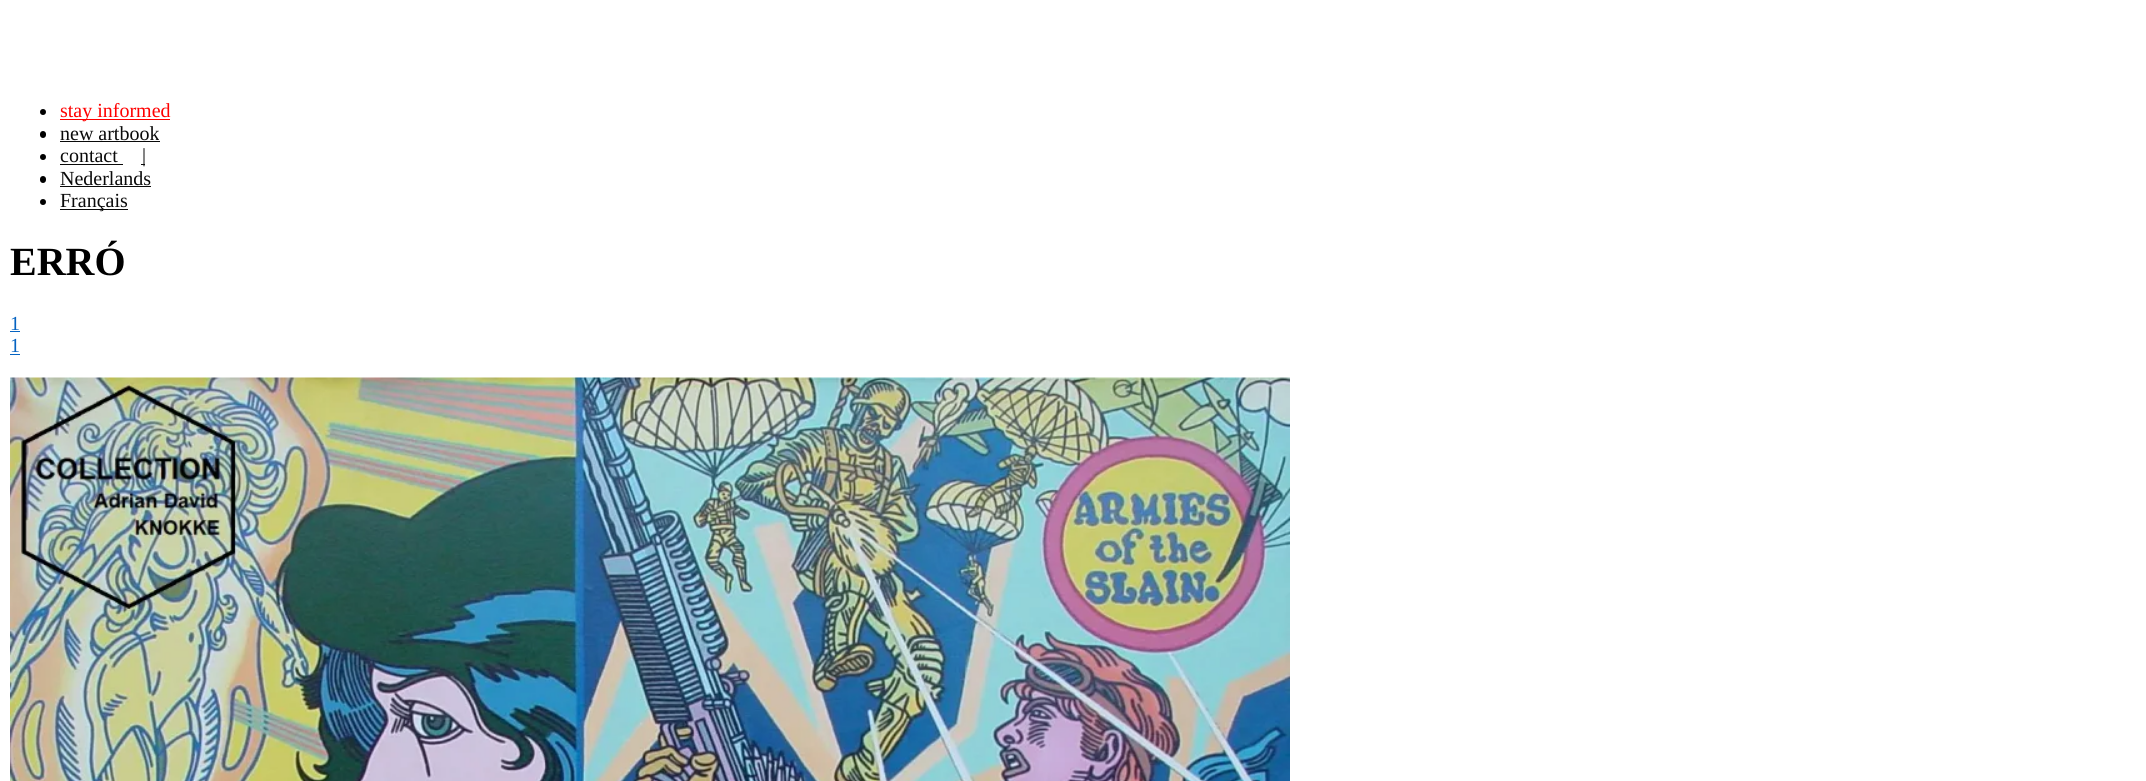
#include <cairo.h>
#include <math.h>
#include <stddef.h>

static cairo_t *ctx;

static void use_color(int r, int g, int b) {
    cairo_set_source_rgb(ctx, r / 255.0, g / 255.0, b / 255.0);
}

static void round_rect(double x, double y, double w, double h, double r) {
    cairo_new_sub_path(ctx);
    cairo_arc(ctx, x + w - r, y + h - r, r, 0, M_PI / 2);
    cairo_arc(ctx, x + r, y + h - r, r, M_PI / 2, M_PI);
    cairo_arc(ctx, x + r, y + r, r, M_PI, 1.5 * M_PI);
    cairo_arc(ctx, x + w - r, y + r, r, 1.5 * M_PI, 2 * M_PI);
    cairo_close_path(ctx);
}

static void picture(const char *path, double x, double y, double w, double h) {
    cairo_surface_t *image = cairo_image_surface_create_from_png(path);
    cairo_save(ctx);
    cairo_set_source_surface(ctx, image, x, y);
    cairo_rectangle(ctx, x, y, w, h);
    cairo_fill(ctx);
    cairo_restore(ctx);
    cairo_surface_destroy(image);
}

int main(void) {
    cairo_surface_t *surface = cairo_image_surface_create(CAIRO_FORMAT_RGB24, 2146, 781);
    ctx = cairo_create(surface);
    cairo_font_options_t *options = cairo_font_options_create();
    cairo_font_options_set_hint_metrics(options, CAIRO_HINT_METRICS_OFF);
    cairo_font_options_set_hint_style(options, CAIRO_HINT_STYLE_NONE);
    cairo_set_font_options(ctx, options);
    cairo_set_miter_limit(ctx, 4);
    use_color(255, 255, 255);
    cairo_paint(ctx);
    use_color(0, 0, 0);
    cairo_arc(ctx, 43, 112, 3, 0, 2 * M_PI);
    cairo_fill(ctx);
    use_color(255, 0, 0);
    cairo_rectangle(ctx, 60, 119, 110, 1);
    cairo_fill(ctx);
    cairo_select_font_face(ctx, "Liberation Serif", CAIRO_FONT_SLANT_NORMAL, CAIRO_FONT_WEIGHT_NORMAL);
    cairo_set_font_size(ctx, 20);
    cairo_move_to(ctx, 60, 117);
    cairo_show_text(ctx, "stay informed");
    use_color(0, 0, 0);
    round_rect(40, 131, 6, 7, 3);
    cairo_fill(ctx);
    use_color(10, 10, 10);
    cairo_move_to(ctx, 60, 140);
    cairo_show_text(ctx, "new artbook");
    cairo_rectangle(ctx, 60, 141, 100, 1);
    cairo_fill(ctx);
    use_color(0, 0, 0);
    cairo_arc(ctx, 43, 157, 3, 0, 2 * M_PI);
    cairo_fill(ctx);
    use_color(10, 10, 10);
    cairo_move_to(ctx, 60, 162);
    cairo_show_text(ctx, "contact");
    cairo_rectangle(ctx, 60, 164, 63, 1);
    cairo_fill(ctx);
    cairo_rectangle(ctx, 141, 164, 4, 1);
    cairo_fill(ctx);
    cairo_move_to(ctx, 142, 162);
    cairo_show_text(ctx, "|");
    use_color(0, 0, 0);
    round_rect(40, 176, 6, 7, 3);
    cairo_fill(ctx);
    use_color(10, 10, 10);
    cairo_move_to(ctx, 60, 185);
    cairo_show_text(ctx, "Nederlands");
    cairo_rectangle(ctx, 60, 186, 91, 1);
    cairo_fill(ctx);
    use_color(0, 0, 0);
    cairo_arc(ctx, 43, 202, 3, 0, 2 * M_PI);
    cairo_fill(ctx);
    use_color(10, 10, 10);
    cairo_rectangle(ctx, 60, 209, 68, 1);
    cairo_fill(ctx);
    cairo_move_to(ctx, 60, 207);
    cairo_show_text(ctx, "Français");
    cairo_select_font_face(ctx, "Liberation Serif", CAIRO_FONT_SLANT_NORMAL, CAIRO_FONT_WEIGHT_BOLD);
    cairo_set_font_size(ctx, 40);
    use_color(0, 0, 0);
    cairo_move_to(ctx, 10, 275);
    cairo_show_text(ctx, "ERRÓ");
    cairo_select_font_face(ctx, "Liberation Serif", CAIRO_FONT_SLANT_NORMAL, CAIRO_FONT_WEIGHT_NORMAL);
    cairo_set_font_size(ctx, 20);
    use_color(5, 99, 193);
    cairo_move_to(ctx, 10, 330);
    cairo_show_text(ctx, "1");
    cairo_rectangle(ctx, 10, 331, 10, 1);
    cairo_fill(ctx);
    cairo_move_to(ctx, 10, 352);
    cairo_show_text(ctx, "1");
    cairo_rectangle(ctx, 10, 354, 10, 1);
    cairo_fill(ctx);
    picture("img1.png", 10, 377, 1280, 404);
    cairo_surface_write_to_png(surface, "result.png");
    cairo_font_options_destroy(options);
    cairo_destroy(ctx);
    cairo_surface_destroy(surface);
    return 0;
}
